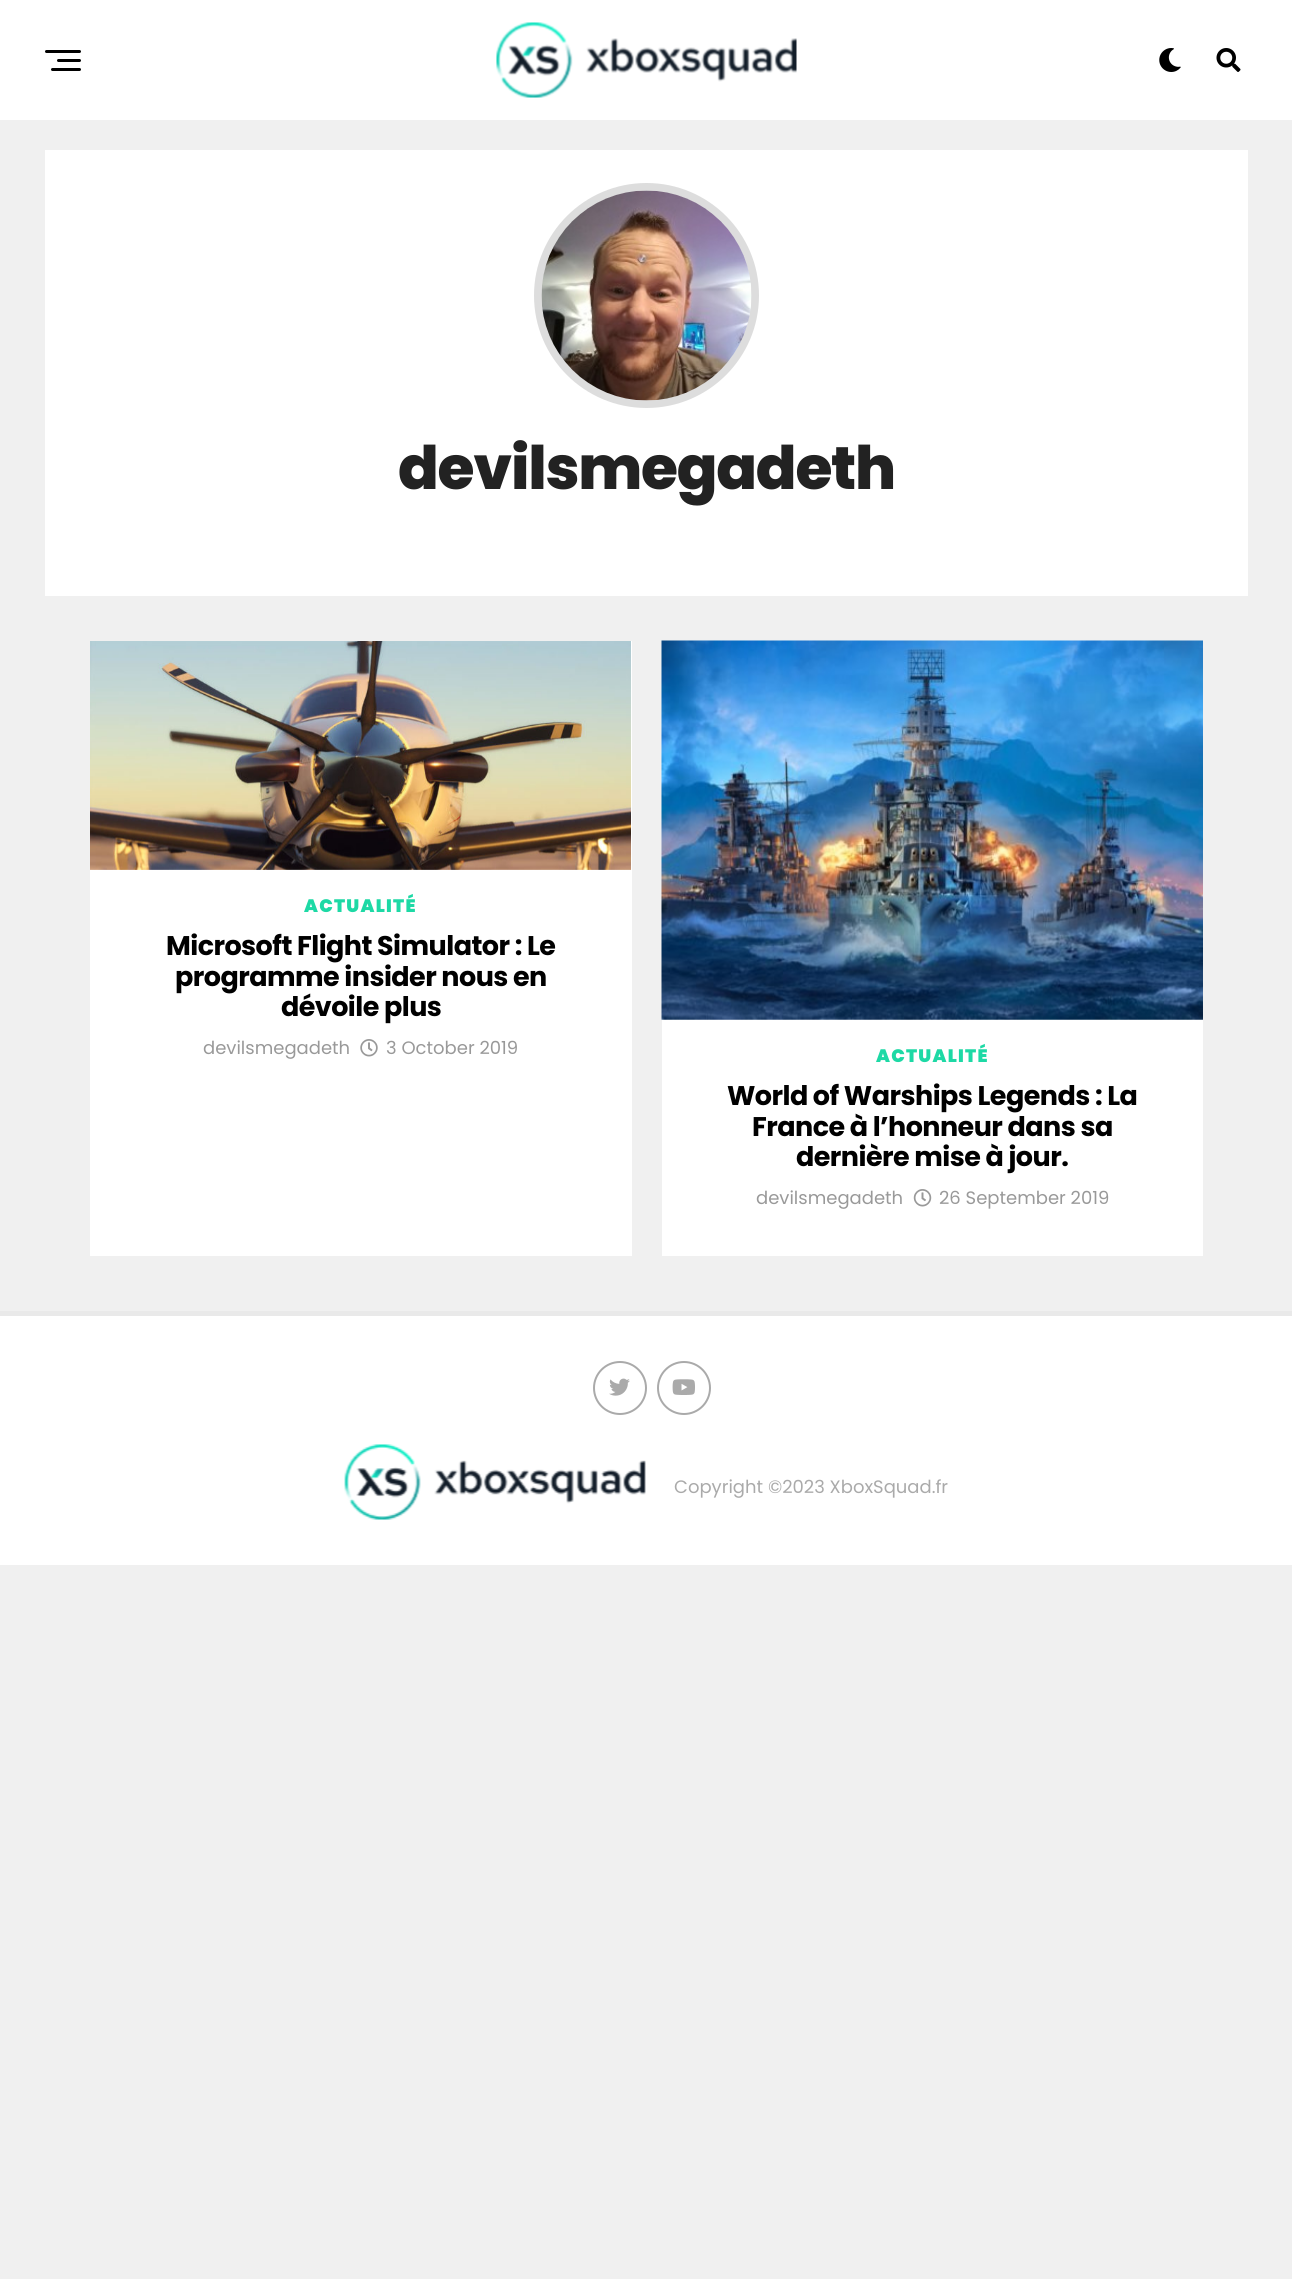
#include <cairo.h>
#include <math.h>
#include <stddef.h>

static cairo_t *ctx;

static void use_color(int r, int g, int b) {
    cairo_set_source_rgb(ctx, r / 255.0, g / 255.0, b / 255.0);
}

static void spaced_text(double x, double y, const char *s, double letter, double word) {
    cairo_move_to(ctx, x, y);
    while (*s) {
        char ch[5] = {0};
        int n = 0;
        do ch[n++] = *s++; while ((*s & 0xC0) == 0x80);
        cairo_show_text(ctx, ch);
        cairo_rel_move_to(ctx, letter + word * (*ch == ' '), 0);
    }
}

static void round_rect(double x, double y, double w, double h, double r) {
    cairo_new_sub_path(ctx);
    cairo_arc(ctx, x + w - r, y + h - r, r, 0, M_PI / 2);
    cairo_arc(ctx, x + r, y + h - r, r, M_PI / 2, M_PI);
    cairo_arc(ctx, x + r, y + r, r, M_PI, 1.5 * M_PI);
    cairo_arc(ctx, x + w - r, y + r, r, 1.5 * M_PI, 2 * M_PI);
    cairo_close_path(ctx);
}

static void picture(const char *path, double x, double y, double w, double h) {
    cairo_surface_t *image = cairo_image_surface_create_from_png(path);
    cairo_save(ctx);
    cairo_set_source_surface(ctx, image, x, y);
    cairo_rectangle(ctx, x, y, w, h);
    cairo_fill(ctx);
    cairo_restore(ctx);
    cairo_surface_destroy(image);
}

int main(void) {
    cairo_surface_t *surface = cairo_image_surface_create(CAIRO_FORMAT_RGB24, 1292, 2279);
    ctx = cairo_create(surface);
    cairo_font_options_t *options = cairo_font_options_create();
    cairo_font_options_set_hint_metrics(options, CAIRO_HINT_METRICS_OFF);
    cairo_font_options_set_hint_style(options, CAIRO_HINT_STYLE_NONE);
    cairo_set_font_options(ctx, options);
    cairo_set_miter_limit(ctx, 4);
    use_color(240, 240, 240);
    cairo_paint(ctx);
    use_color(255, 255, 255);
    cairo_rectangle(ctx, 0, 0, 1292, 120);
    cairo_fill(ctx);
    use_color(0, 0, 0);
    round_rect(45, 50, 36, 3, 1.5);
    cairo_fill(ctx);
    round_rect(57, 59, 24, 3, 1.5);
    cairo_fill(ctx);
    round_rect(51, 68, 30, 3, 1.5);
    cairo_fill(ctx);
    picture("img1.png", 496, 22, 301, 76);
    picture("img2.png", 1159, 48, 22, 24);
    picture("img3.png", 1216, 48, 25, 24);
    use_color(255, 255, 255);
    cairo_rectangle(ctx, 45, 150, 1203, 446);
    cairo_fill(ctx);
    cairo_arc(ctx, 646.5, 295.5, 108.5, 0, 2 * M_PI);
    use_color(221, 221, 221);
    cairo_set_line_width(ctx, 8);
    cairo_stroke(ctx);
    picture("img4.png", 541, 190, 211, 211);
    cairo_select_font_face(ctx, "Poppins ExtraBold", CAIRO_FONT_SLANT_NORMAL, CAIRO_FONT_WEIGHT_NORMAL);
    cairo_set_font_size(ctx, 60);
    use_color(34, 34, 34);
    spaced_text(398, 489, "devilsmegadeth", -1.25, 0);
    use_color(255, 255, 255);
    cairo_rectangle(ctx, 90, 641, 542, 615);
    cairo_fill(ctx);
    picture("img5.png", 90, 641, 541, 229);
    cairo_select_font_face(ctx, "Poppins Black", CAIRO_FONT_SLANT_NORMAL, CAIRO_FONT_WEIGHT_NORMAL);
    cairo_set_font_size(ctx, 18);
    use_color(29, 217, 165);
    spaced_text(304, 912, "ACTUALITÉ", 1.25, 0);
    cairo_select_font_face(ctx, "Poppins", CAIRO_FONT_SLANT_NORMAL, CAIRO_FONT_WEIGHT_BOLD);
    cairo_set_font_size(ctx, 27);
    use_color(0, 0, 0);
    spaced_text(166, 955, "Microsoft Flight Simulator : Le", -0.55, 0);
    spaced_text(175, 986, "programme insider nous en", -0.55, 0);
    spaced_text(281, 1016, "dévoile plus", -0.55, 0);
    cairo_select_font_face(ctx, "Poppins", CAIRO_FONT_SLANT_NORMAL, CAIRO_FONT_WEIGHT_NORMAL);
    cairo_set_font_size(ctx, 18);
    use_color(153, 153, 153);
    cairo_move_to(ctx, 203, 1054);
    cairo_show_text(ctx, "devilsmegadeth");
    picture("img6.png", 360, 1039, 18, 18);
    cairo_move_to(ctx, 386, 1054);
    cairo_show_text(ctx, "3 October 2019");
    use_color(255, 255, 255);
    cairo_rectangle(ctx, 662, 1019, 541, 237);
    cairo_fill(ctx);
    picture("img7.png", 661, 640, 542, 380);
    cairo_select_font_face(ctx, "Poppins Black", CAIRO_FONT_SLANT_NORMAL, CAIRO_FONT_WEIGHT_NORMAL);
    use_color(29, 217, 165);
    spaced_text(876, 1062, "ACTUALITÉ", 1.25, 0);
    cairo_select_font_face(ctx, "Poppins", CAIRO_FONT_SLANT_NORMAL, CAIRO_FONT_WEIGHT_BOLD);
    cairo_set_font_size(ctx, 27);
    use_color(0, 0, 0);
    spaced_text(727, 1105, "World of Warships Legends : La", -0.55, 0);
    spaced_text(752, 1136, "France à l’honneur dans sa", -0.55, 0);
    spaced_text(796, 1166, "dernière mise à jour.", -0.55, 0);
    cairo_select_font_face(ctx, "Poppins", CAIRO_FONT_SLANT_NORMAL, CAIRO_FONT_WEIGHT_NORMAL);
    cairo_set_font_size(ctx, 18);
    use_color(153, 153, 153);
    cairo_move_to(ctx, 756, 1204);
    cairo_show_text(ctx, "devilsmegadeth");
    picture("img8.png", 913, 1189, 19, 18);
    cairo_move_to(ctx, 939, 1204);
    cairo_show_text(ctx, "26 September 2019");
    use_color(255, 255, 255);
    cairo_rectangle(ctx, 0, 1316, 1292, 249);
    cairo_fill(ctx);
    use_color(233, 233, 233);
    cairo_rectangle(ctx, 0, 1311, 1292, 5);
    cairo_fill(ctx);
    cairo_arc(ctx, 620, 1388, 26, 0, 2 * M_PI);
    use_color(170, 170, 170);
    cairo_set_line_width(ctx, 2);
    cairo_stroke(ctx);
    picture("img9.png", 609, 1378, 21, 18);
    cairo_arc(ctx, 684, 1388, 26, 0, 2 * M_PI);
    cairo_stroke(ctx);
    picture("img10.png", 672, 1379, 23, 16);
    picture("img11.png", 344, 1444, 302, 76);
    cairo_move_to(ctx, 674, 1493);
    cairo_show_text(ctx, "Copyright ©2023 XboxSquad.fr");
    cairo_surface_write_to_png(surface, "result.png");
    cairo_font_options_destroy(options);
    cairo_destroy(ctx);
    cairo_surface_destroy(surface);
    return 0;
}
